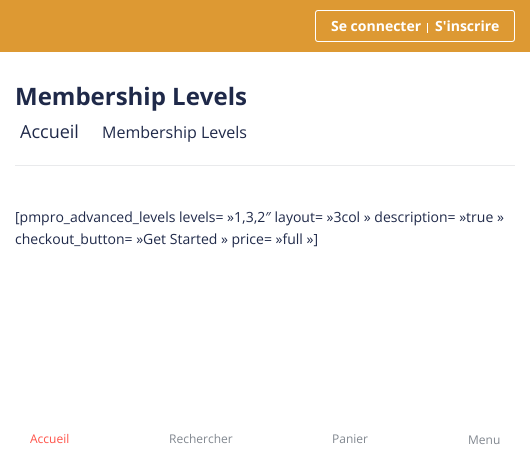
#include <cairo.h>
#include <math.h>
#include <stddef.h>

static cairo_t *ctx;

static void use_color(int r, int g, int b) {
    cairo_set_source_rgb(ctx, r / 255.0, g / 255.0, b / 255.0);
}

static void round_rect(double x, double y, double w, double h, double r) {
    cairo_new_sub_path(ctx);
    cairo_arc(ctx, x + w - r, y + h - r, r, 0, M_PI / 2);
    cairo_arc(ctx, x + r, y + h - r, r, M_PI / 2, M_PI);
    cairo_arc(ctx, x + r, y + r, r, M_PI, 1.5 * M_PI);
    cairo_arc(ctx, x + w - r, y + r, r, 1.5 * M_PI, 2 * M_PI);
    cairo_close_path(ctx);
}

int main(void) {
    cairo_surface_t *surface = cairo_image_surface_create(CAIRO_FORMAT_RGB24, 530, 461);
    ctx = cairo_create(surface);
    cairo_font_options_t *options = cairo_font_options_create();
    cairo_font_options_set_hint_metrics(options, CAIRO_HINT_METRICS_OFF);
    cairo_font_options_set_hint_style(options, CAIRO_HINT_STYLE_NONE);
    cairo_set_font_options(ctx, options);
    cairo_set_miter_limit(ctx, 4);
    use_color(255, 255, 255);
    cairo_paint(ctx);
    use_color(221, 153, 51);
    cairo_rectangle(ctx, 0, 0, 530, 52);
    cairo_fill(ctx);
    round_rect(315.5, 10.5, 199, 31, 2.5);
    use_color(255, 255, 255);
    cairo_set_line_width(ctx, 1);
    cairo_stroke(ctx);
    cairo_select_font_face(ctx, "Open Sans", CAIRO_FONT_SLANT_NORMAL, CAIRO_FONT_WEIGHT_BOLD);
    cairo_set_font_size(ctx, 14);
    cairo_move_to(ctx, 331, 31);
    cairo_show_text(ctx, "Se connecter");
    cairo_rectangle(ctx, 427, 23, 1, 10);
    cairo_fill(ctx);
    cairo_move_to(ctx, 435, 31);
    cairo_show_text(ctx, "S'inscrire");
    cairo_set_font_size(ctx, 24);
    use_color(31, 41, 73);
    cairo_move_to(ctx, 15, 105);
    cairo_show_text(ctx, "Membership Levels");
    cairo_select_font_face(ctx, "Open Sans", CAIRO_FONT_SLANT_NORMAL, CAIRO_FONT_WEIGHT_NORMAL);
    cairo_set_font_size(ctx, 18);
    cairo_move_to(ctx, 20, 138);
    cairo_show_text(ctx, "Accueil");
    cairo_set_font_size(ctx, 16);
    cairo_move_to(ctx, 102, 138);
    cairo_show_text(ctx, "Membership Levels");
    use_color(233, 234, 236);
    cairo_rectangle(ctx, 15, 165, 500, 1);
    cairo_fill(ctx);
    cairo_set_font_size(ctx, 14);
    use_color(31, 41, 73);
    cairo_move_to(ctx, 15, 222);
    cairo_show_text(ctx, "[pmpro_advanced_levels levels= »1,3,2″ layout= »3col » description= »true »");
    cairo_move_to(ctx, 15, 244);
    cairo_show_text(ctx, "checkout_button= »Get Started » price= »full »]");
    cairo_set_font_size(ctx, 12);
    use_color(255, 82, 72);
    cairo_move_to(ctx, 30, 443);
    cairo_show_text(ctx, "Accueil");
    use_color(129, 135, 143);
    cairo_move_to(ctx, 169, 443);
    cairo_show_text(ctx, "Rechercher");
    cairo_move_to(ctx, 332, 443);
    cairo_show_text(ctx, "Panier");
    cairo_move_to(ctx, 468, 444);
    cairo_show_text(ctx, "Menu");
    cairo_surface_write_to_png(surface, "result.png");
    cairo_font_options_destroy(options);
    cairo_destroy(ctx);
    cairo_surface_destroy(surface);
    return 0;
}
